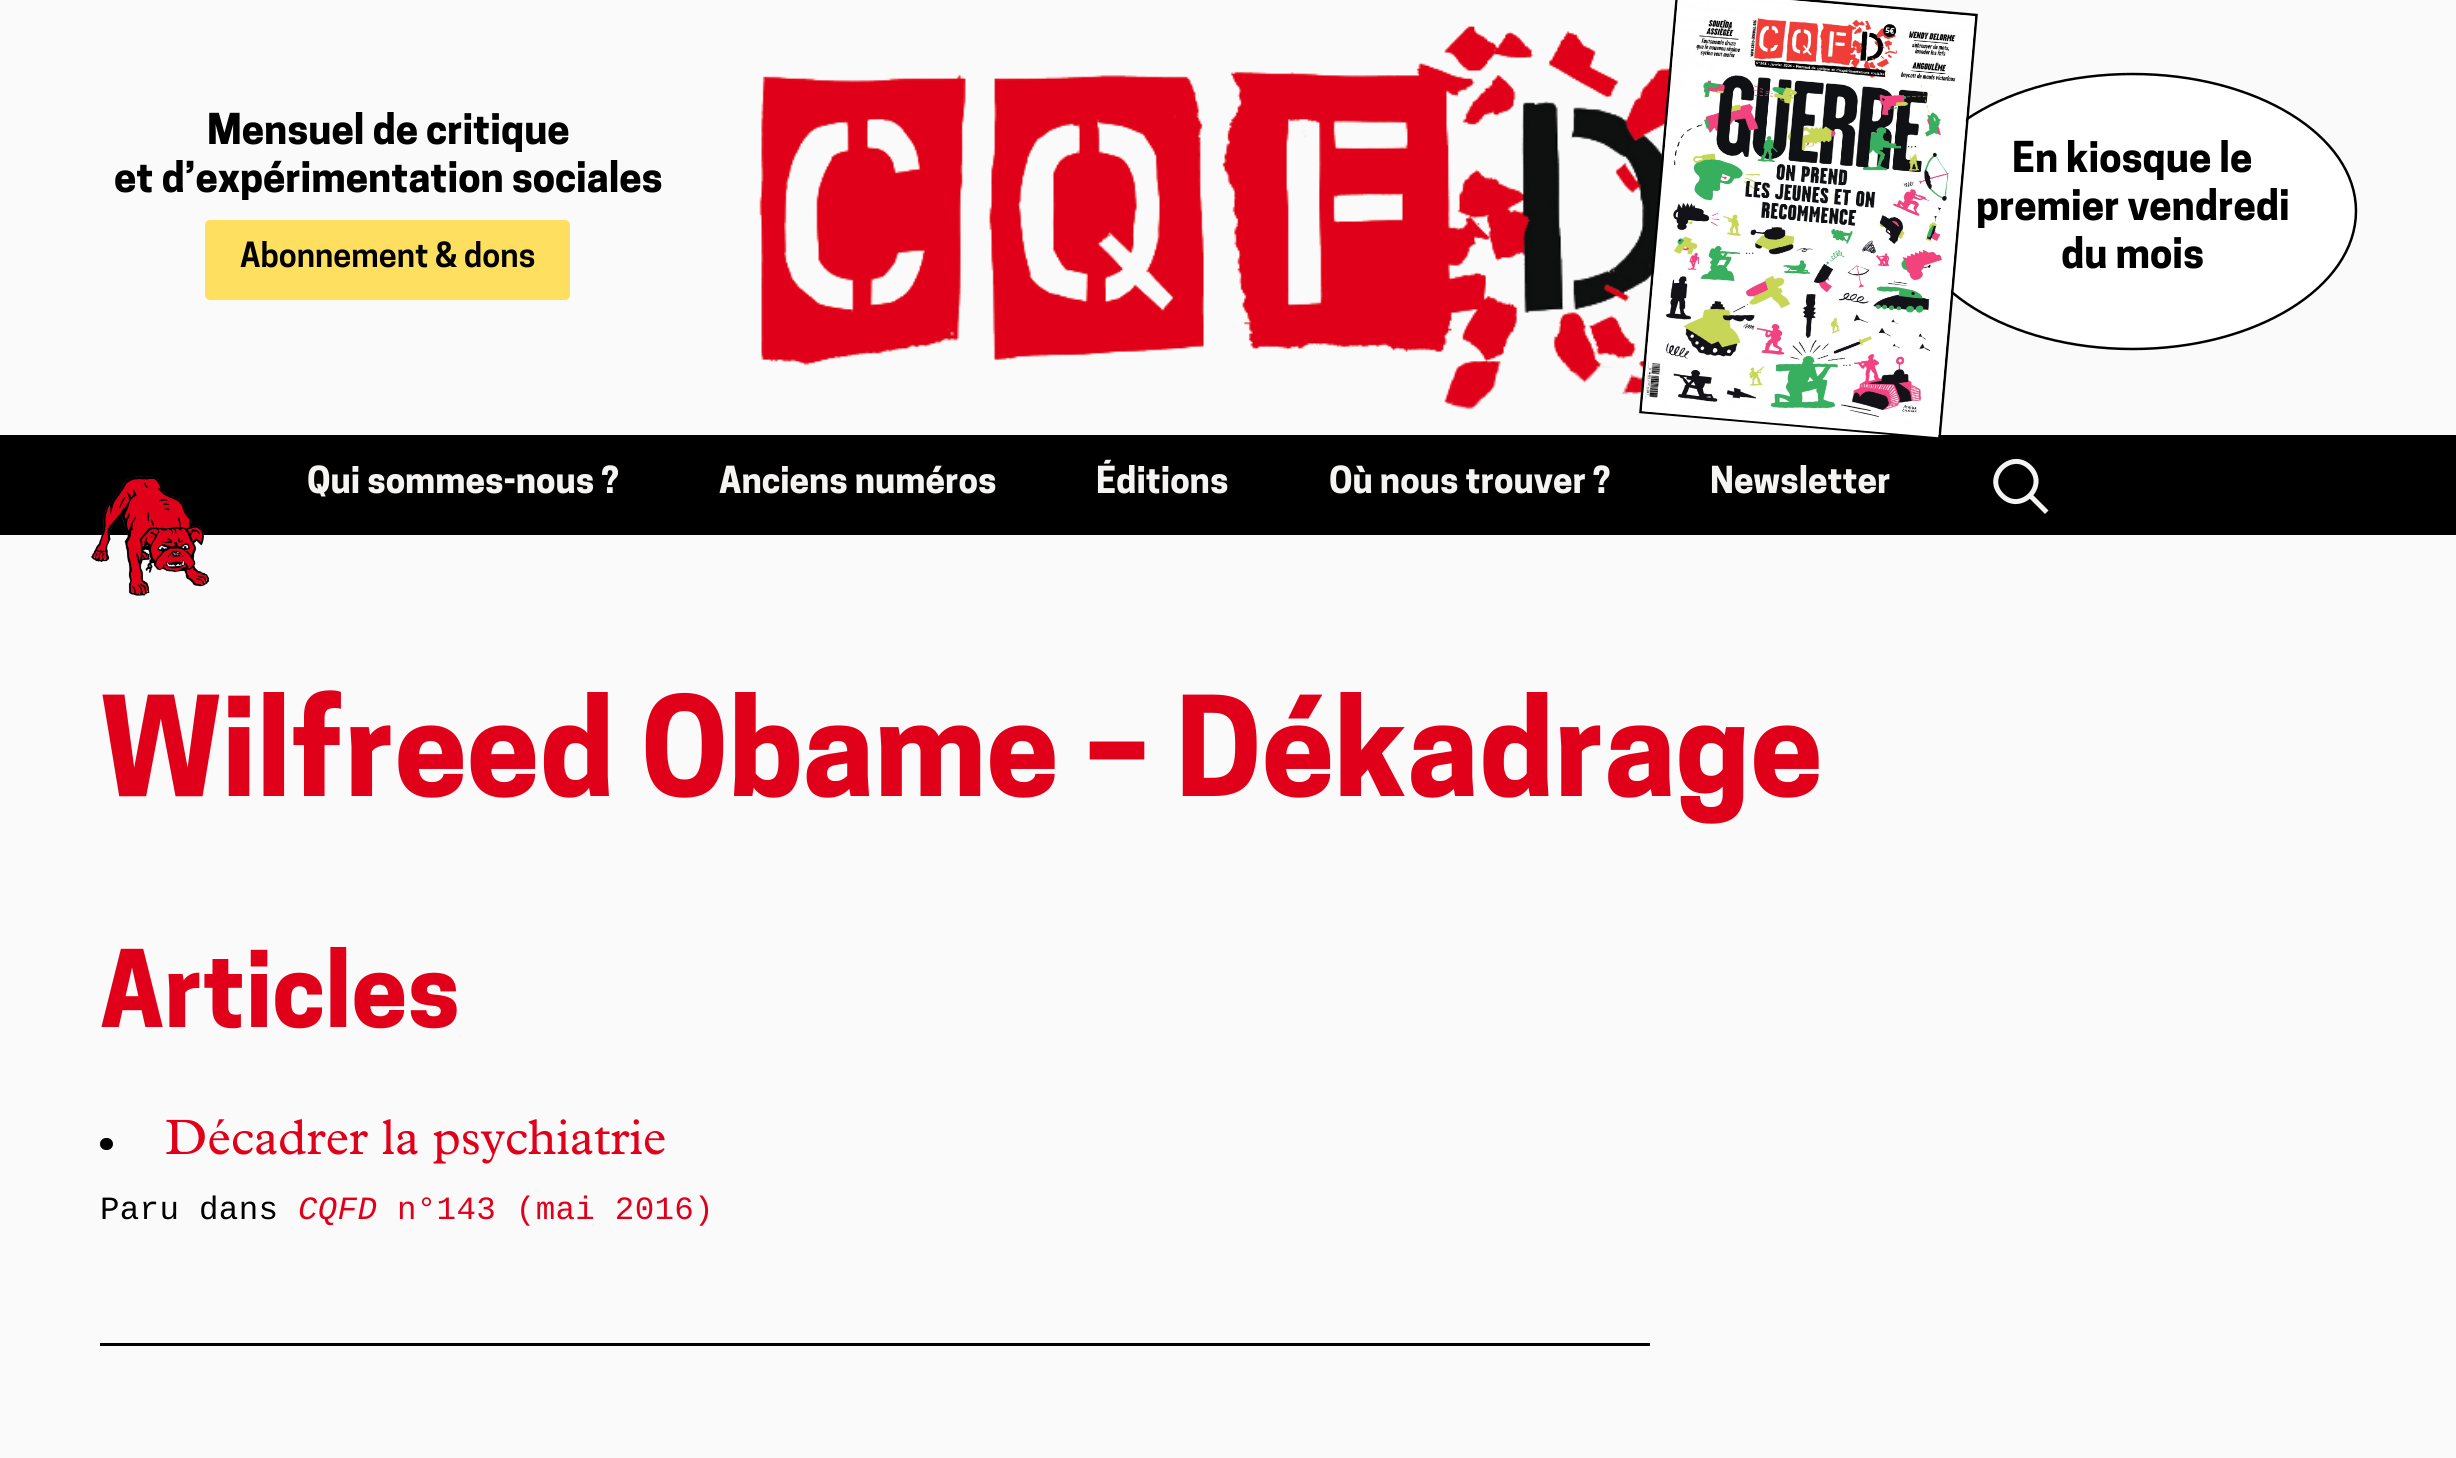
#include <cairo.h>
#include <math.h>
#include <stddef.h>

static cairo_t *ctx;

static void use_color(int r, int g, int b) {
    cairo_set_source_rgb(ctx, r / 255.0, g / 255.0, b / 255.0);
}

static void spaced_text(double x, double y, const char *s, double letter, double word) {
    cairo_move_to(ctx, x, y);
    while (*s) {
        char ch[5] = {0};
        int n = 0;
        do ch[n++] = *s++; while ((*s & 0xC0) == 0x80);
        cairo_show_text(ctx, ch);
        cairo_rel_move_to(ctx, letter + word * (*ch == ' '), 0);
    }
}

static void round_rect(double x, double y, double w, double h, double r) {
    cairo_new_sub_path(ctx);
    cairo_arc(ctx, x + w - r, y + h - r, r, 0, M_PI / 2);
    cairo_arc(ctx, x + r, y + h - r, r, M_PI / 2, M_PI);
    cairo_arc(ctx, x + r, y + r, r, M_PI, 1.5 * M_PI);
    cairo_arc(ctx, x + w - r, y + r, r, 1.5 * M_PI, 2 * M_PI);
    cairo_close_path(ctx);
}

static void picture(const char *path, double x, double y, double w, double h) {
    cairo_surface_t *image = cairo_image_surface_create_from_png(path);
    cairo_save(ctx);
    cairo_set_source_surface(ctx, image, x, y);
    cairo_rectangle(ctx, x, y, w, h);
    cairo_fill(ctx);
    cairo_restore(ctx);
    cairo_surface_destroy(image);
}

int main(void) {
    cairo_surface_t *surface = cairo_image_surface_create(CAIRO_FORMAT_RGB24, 2456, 1458);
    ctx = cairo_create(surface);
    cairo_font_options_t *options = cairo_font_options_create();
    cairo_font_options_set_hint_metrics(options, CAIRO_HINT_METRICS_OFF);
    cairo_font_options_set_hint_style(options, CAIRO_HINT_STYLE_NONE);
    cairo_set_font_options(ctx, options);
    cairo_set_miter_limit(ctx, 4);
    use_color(250, 250, 250);
    cairo_paint(ctx);
    cairo_select_font_face(ctx, "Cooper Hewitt", CAIRO_FONT_SLANT_NORMAL, CAIRO_FONT_WEIGHT_BOLD);
    cairo_set_font_size(ctx, 40);
    use_color(0, 0, 0);
    cairo_move_to(ctx, 207, 144);
    cairo_show_text(ctx, "Mensuel de critique");
    cairo_move_to(ctx, 114, 192);
    cairo_show_text(ctx, "et d’expérimentation sociales");
    use_color(255, 223, 95);
    round_rect(205, 220, 365, 80, 5);
    cairo_fill(ctx);
    cairo_select_font_face(ctx, "Cooper Hewitt SemiBold", CAIRO_FONT_SLANT_NORMAL, CAIRO_FONT_WEIGHT_NORMAL);
    cairo_set_font_size(ctx, 32.5);
    use_color(0, 0, 0);
    cairo_move_to(ctx, 240, 267);
    cairo_show_text(ctx, "Abonnement & dons");
    picture("img1.png", 759, 26, 913, 384);
    use_color(255, 255, 255);
    cairo_new_path(ctx);
    cairo_move_to(ctx, 2132.5, 72);
    cairo_curve_to(ctx, 2257, 72, 2357.5, 134, 2357.5, 211);
    cairo_curve_to(ctx, 2357.5, 288, 2257, 350, 2132.5, 350);
    cairo_curve_to(ctx, 2008, 350, 1907.5, 288, 1907.5, 211);
    cairo_curve_to(ctx, 1907.5, 134, 2008, 72, 2132.5, 72);
    cairo_close_path(ctx);
    cairo_fill(ctx);
    cairo_new_path(ctx);
    cairo_move_to(ctx, 2132.5, 74);
    cairo_curve_to(ctx, 2256, 74, 2356, 135.5, 2356, 211);
    cairo_curve_to(ctx, 2356, 287, 2256, 349, 2132.5, 349);
    cairo_curve_to(ctx, 2009, 349, 1909, 287, 1909, 211);
    cairo_curve_to(ctx, 1909, 135.5, 2009, 74, 2132.5, 74);
    cairo_close_path(ctx);
    use_color(0, 0, 0);
    cairo_set_line_width(ctx, 2.5);
    cairo_stroke(ctx);
    cairo_rectangle(ctx, 0, 435, 2456, 100);
    cairo_fill(ctx);
    cairo_new_path(ctx);
    cairo_move_to(ctx, 1677.5, -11);
    cairo_line_to(ctx, 1976.5, 15);
    cairo_line_to(ctx, 1939.5, 438);
    cairo_line_to(ctx, 1640.5, 412);
    cairo_close_path(ctx);
    cairo_stroke(ctx);
    picture("img2.png", 1641, 0, 334, 438);
    cairo_select_font_face(ctx, "Cooper Hewitt", CAIRO_FONT_SLANT_NORMAL, CAIRO_FONT_WEIGHT_BOLD);
    cairo_set_font_size(ctx, 40);
    cairo_move_to(ctx, 2012, 172);
    cairo_show_text(ctx, "En kiosque le");
    cairo_move_to(ctx, 1976, 220);
    cairo_show_text(ctx, "premier vendredi");
    cairo_move_to(ctx, 2061, 268);
    cairo_show_text(ctx, "du mois");
    picture("img3.png", 91, 476, 118, 120);
    cairo_set_font_size(ctx, 35);
    use_color(246, 244, 243);
    cairo_move_to(ctx, 307, 493);
    cairo_show_text(ctx, "Qui sommes-nous ?");
    cairo_move_to(ctx, 719, 493);
    cairo_show_text(ctx, "Anciens numéros");
    cairo_move_to(ctx, 1096, 493);
    cairo_show_text(ctx, "Éditions");
    cairo_move_to(ctx, 1329, 493);
    cairo_show_text(ctx, "Où nous trouver ?");
    cairo_move_to(ctx, 1710, 493);
    cairo_show_text(ctx, "Newsletter");
    cairo_new_path(ctx);
    cairo_move_to(ctx, 2030, 467.5);
    cairo_curve_to(ctx, 2048.5, 486, 2020.5, 514, 2002, 495.5);
    cairo_curve_to(ctx, 1983, 477, 2011.5, 449, 2030, 467.5);
    cairo_close_path(ctx);
    cairo_set_line_width(ctx, 5);
    cairo_stroke(ctx);
    cairo_new_path(ctx);
    cairo_move_to(ctx, 2031.5, 493.5);
    cairo_line_to(ctx, 2048.5, 510.5);
    cairo_line_to(ctx, 2045, 514);
    cairo_line_to(ctx, 2028, 497);
    cairo_close_path(ctx);
    cairo_fill(ctx);
    cairo_set_font_size(ctx, 130);
    use_color(225, 0, 26);
    cairo_move_to(ctx, 100, 796);
    cairo_show_text(ctx, "Wilfreed Obame – Dékadrage");
    cairo_set_font_size(ctx, 100);
    cairo_move_to(ctx, 100, 1027);
    cairo_show_text(ctx, "Articles");
    use_color(0, 0, 0);
    round_rect(100, 1138, 13, 12, 6);
    cairo_fill(ctx);
    cairo_select_font_face(ctx, "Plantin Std", CAIRO_FONT_SLANT_NORMAL, CAIRO_FONT_WEIGHT_NORMAL);
    cairo_set_font_size(ctx, 50);
    use_color(225, 0, 26);
    cairo_move_to(ctx, 165, 1154);
    cairo_show_text(ctx, "Décadrer la psychiatrie");
    cairo_select_font_face(ctx, "Liberation Mono", CAIRO_FONT_SLANT_NORMAL, CAIRO_FONT_WEIGHT_NORMAL);
    cairo_set_font_size(ctx, 32.5);
    use_color(0, 0, 0);
    spaced_text(100, 1219, "Paru dans", 0.3, 0);
    cairo_select_font_face(ctx, "Liberation Mono", CAIRO_FONT_SLANT_ITALIC, CAIRO_FONT_WEIGHT_NORMAL);
    use_color(225, 0, 26);
    spaced_text(298, 1219, "CQFD", 0.3, 0);
    cairo_select_font_face(ctx, "Liberation Mono", CAIRO_FONT_SLANT_NORMAL, CAIRO_FONT_WEIGHT_NORMAL);
    spaced_text(397, 1219, "n°143 (mai 2016)", 0.3, 0);
    use_color(0, 0, 0);
    cairo_rectangle(ctx, 100, 1343, 1550, 3);
    cairo_fill(ctx);
    cairo_surface_write_to_png(surface, "result.png");
    cairo_font_options_destroy(options);
    cairo_destroy(ctx);
    cairo_surface_destroy(surface);
    return 0;
}
